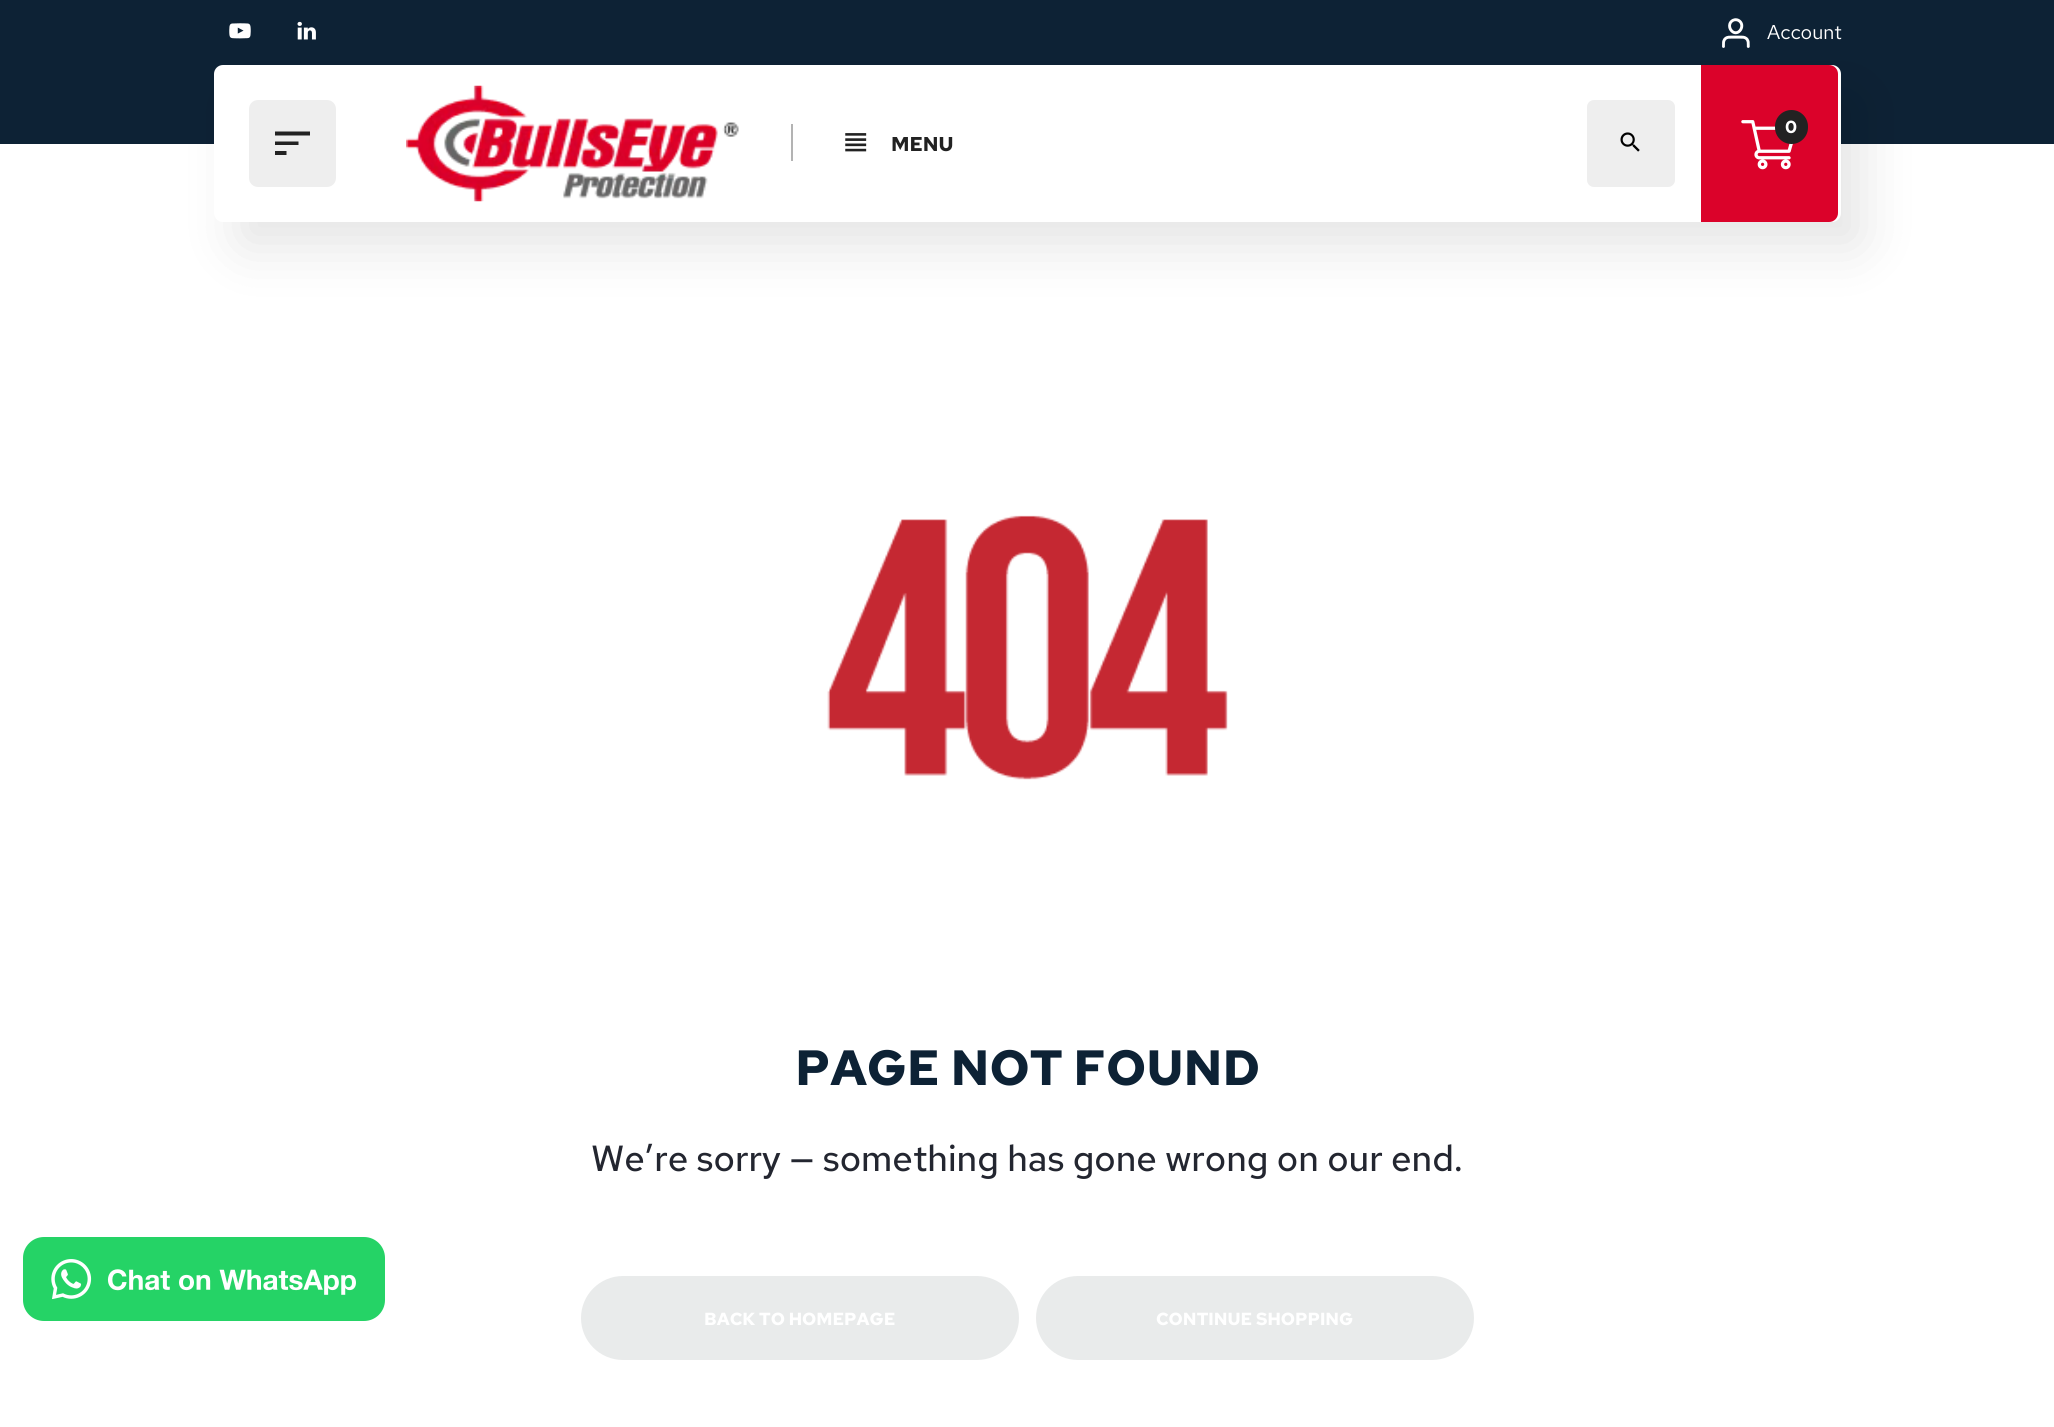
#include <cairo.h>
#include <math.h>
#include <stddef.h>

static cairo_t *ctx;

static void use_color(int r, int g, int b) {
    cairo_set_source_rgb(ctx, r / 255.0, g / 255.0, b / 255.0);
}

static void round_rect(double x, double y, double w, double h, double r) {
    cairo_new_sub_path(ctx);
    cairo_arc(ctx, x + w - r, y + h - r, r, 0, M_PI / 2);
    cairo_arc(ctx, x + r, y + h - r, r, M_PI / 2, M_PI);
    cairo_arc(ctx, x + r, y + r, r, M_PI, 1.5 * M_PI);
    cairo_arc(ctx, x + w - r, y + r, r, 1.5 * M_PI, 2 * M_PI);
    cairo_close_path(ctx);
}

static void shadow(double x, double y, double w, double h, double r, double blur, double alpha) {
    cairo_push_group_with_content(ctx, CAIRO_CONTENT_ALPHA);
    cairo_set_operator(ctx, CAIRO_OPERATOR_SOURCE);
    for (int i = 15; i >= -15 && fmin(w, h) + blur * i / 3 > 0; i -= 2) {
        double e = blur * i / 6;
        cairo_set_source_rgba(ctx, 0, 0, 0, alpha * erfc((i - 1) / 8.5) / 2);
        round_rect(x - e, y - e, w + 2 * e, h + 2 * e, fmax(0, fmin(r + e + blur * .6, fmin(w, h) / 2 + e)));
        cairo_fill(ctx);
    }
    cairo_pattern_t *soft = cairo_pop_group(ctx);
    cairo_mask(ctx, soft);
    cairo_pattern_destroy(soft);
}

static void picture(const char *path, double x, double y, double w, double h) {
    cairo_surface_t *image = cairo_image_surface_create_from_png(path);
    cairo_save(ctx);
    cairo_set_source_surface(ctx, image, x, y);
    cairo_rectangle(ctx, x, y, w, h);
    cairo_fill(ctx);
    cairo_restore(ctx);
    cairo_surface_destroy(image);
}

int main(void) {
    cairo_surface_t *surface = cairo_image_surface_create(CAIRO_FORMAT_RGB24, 2054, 1427);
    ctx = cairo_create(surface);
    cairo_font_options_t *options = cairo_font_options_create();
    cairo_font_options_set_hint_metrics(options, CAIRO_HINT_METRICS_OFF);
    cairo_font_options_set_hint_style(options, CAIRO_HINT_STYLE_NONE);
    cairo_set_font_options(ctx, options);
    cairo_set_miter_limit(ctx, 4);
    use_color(255, 255, 255);
    cairo_paint(ctx);
    use_color(13, 34, 53);
    cairo_rectangle(ctx, 0, 0, 2054, 144);
    cairo_fill(ctx);
    picture("img1.png", 229, 23, 22, 16);
    picture("img2.png", 297, 21, 19, 19);
    picture("img3.png", 1722, 18, 28, 30);
    cairo_select_font_face(ctx, "Red Hat Text", CAIRO_FONT_SLANT_NORMAL, CAIRO_FONT_WEIGHT_NORMAL);
    cairo_set_font_size(ctx, 20);
    use_color(255, 255, 255);
    cairo_move_to(ctx, 1767, 39);
    cairo_show_text(ctx, "Account");
    use_color(0, 0, 0);
    shadow(236, 91, 1628, 158, 9, 26, 0.1);
    use_color(255, 255, 255);
    round_rect(214, 65, 1627, 157, 9);
    cairo_fill(ctx);
    use_color(238, 238, 238);
    round_rect(1587, 100, 88, 87, 7);
    cairo_fill(ctx);
    picture("img4.png", 1620, 132, 20, 20);
    use_color(219, 2, 42);
    cairo_new_path(ctx);
    cairo_move_to(ctx, 1701, 65);
    cairo_line_to(ctx, 1829, 65);
    cairo_curve_to(ctx, 1834, 65, 1838, 69, 1838, 74);
    cairo_line_to(ctx, 1838, 213);
    cairo_curve_to(ctx, 1838, 218, 1834, 222, 1829, 222);
    cairo_line_to(ctx, 1701, 222);
    cairo_close_path(ctx);
    cairo_fill(ctx);
    picture("img5.png", 1741, 120, 53, 50);
    use_color(34, 34, 34);
    round_rect(1775, 110, 33, 34, 16.5);
    cairo_fill(ctx);
    cairo_select_font_face(ctx, "Red Hat Text", CAIRO_FONT_SLANT_NORMAL, CAIRO_FONT_WEIGHT_BOLD);
    cairo_set_font_size(ctx, 17.5);
    use_color(255, 255, 255);
    cairo_move_to(ctx, 1785, 133);
    cairo_show_text(ctx, "0");
    use_color(238, 238, 238);
    round_rect(249, 100, 87, 87, 9);
    cairo_fill(ctx);
    use_color(34, 34, 34);
    cairo_new_path(ctx);
    cairo_move_to(ctx, 275, 155);
    cairo_line_to(ctx, 275, 151);
    cairo_line_to(ctx, 286.5, 151);
    cairo_line_to(ctx, 286.5, 155);
    cairo_close_path(ctx);
    cairo_move_to(ctx, 275, 131.5);
    cairo_line_to(ctx, 310, 131.5);
    cairo_line_to(ctx, 310, 135.5);
    cairo_line_to(ctx, 275, 135.5);
    cairo_close_path(ctx);
    cairo_move_to(ctx, 275, 145);
    cairo_line_to(ctx, 275, 141.5);
    cairo_line_to(ctx, 298.5, 141.5);
    cairo_line_to(ctx, 298.5, 145);
    cairo_close_path(ctx);
    cairo_fill(ctx);
    picture("img6.png", 406, 85, 333, 117);
    use_color(179, 179, 179);
    cairo_rectangle(ctx, 791, 124, 2, 37);
    cairo_fill(ctx);
    picture("img7.png", 845, 133, 22, 19);
    cairo_set_font_size(ctx, 20);
    use_color(34, 34, 34);
    cairo_move_to(ctx, 891, 151);
    cairo_show_text(ctx, "MENU");
    picture("img8.png", 23, 1237, 362, 84);
    picture("img9.png", 827, 515, 401, 265);
    cairo_set_font_size(ctx, 49.5);
    use_color(13, 34, 53);
    cairo_move_to(ctx, 795, 1085);
    cairo_show_text(ctx, "PAGE NOT FOUND");
    cairo_select_font_face(ctx, "Red Hat Text Medium", CAIRO_FONT_SLANT_NORMAL, CAIRO_FONT_WEIGHT_NORMAL);
    cairo_set_font_size(ctx, 36.3);
    use_color(35, 38, 48);
    cairo_move_to(ctx, 591, 1171);
    cairo_show_text(ctx, "We’re sorry — something has gone wrong on our end.");
    use_color(233, 235, 235);
    round_rect(581, 1276, 438, 84, 42);
    cairo_fill(ctx);
    cairo_select_font_face(ctx, "Red Hat Text", CAIRO_FONT_SLANT_NORMAL, CAIRO_FONT_WEIGHT_BOLD);
    cairo_set_font_size(ctx, 17.5);
    use_color(255, 255, 255);
    cairo_move_to(ctx, 704, 1325);
    cairo_show_text(ctx, "BACK TO HOMEPAGE");
    use_color(233, 235, 235);
    round_rect(1036, 1276, 438, 84, 42);
    cairo_fill(ctx);
    use_color(255, 255, 255);
    cairo_move_to(ctx, 1156, 1325);
    cairo_show_text(ctx, "CONTINUE SHOPPING");
    cairo_surface_write_to_png(surface, "result.png");
    cairo_font_options_destroy(options);
    cairo_destroy(ctx);
    cairo_surface_destroy(surface);
    return 0;
}
